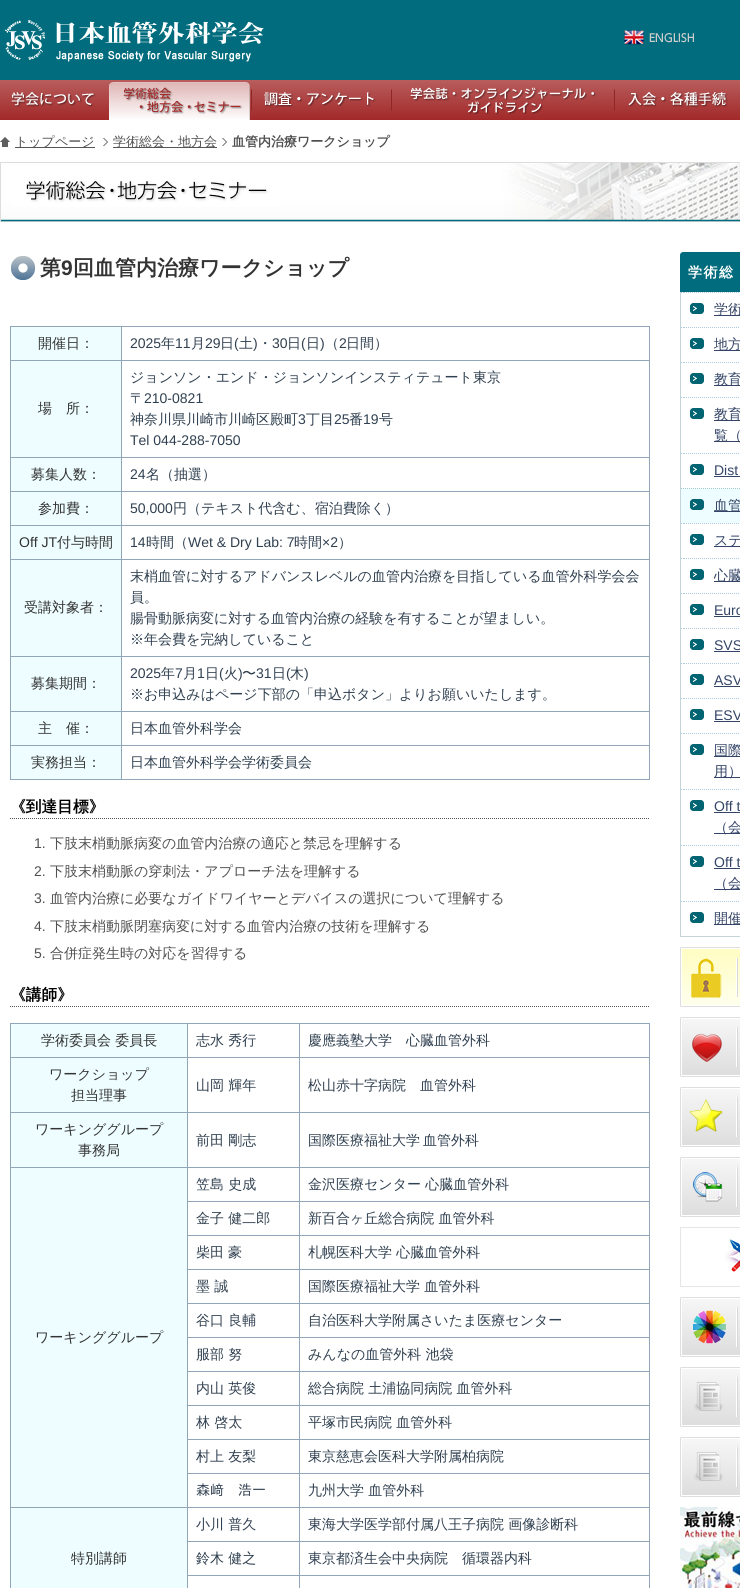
#include <cairo.h>
#include <math.h>
#include <stddef.h>

static cairo_t *ctx;

static void use_color(int r, int g, int b) {
    cairo_set_source_rgb(ctx, r / 255.0, g / 255.0, b / 255.0);
}

static void spaced_text(double x, double y, const char *s, double letter, double word) {
    cairo_move_to(ctx, x, y);
    while (*s) {
        char ch[5] = {0};
        int n = 0;
        do ch[n++] = *s++; while ((*s & 0xC0) == 0x80);
        cairo_show_text(ctx, ch);
        cairo_rel_move_to(ctx, letter + word * (*ch == ' '), 0);
    }
}

static void picture(const char *path, double x, double y, double w, double h) {
    cairo_surface_t *image = cairo_image_surface_create_from_png(path);
    cairo_save(ctx);
    cairo_set_source_surface(ctx, image, x, y);
    cairo_rectangle(ctx, x, y, w, h);
    cairo_fill(ctx);
    cairo_restore(ctx);
    cairo_surface_destroy(image);
}

int main(void) {
    cairo_surface_t *surface = cairo_image_surface_create(CAIRO_FORMAT_RGB24, 740, 1588);
    ctx = cairo_create(surface);
    cairo_font_options_t *options = cairo_font_options_create();
    cairo_font_options_set_hint_metrics(options, CAIRO_HINT_METRICS_OFF);
    cairo_font_options_set_hint_style(options, CAIRO_HINT_STYLE_NONE);
    cairo_set_font_options(ctx, options);
    cairo_set_miter_limit(ctx, 4);
    use_color(0, 108, 125);
    cairo_paint(ctx);
    picture("img1.png", 5, 20, 259, 42);
    picture("img2.png", 624, 30, 70, 15);
    picture("img3.png", 0, 80, 740, 40);
    picture("img4.png", 11, 92, 85, 16);
    picture("img5.png", 109, 82, 141, 38);
    picture("img6.png", 251, 89, 125, 22);
    picture("img7.png", 391, 87, 205, 28);
    picture("img8.png", 614, 89, 114, 22);
    use_color(255, 255, 255);
    cairo_rectangle(ctx, 0, 120, 740, 1468);
    cairo_fill(ctx);
    picture("img9.png", 0, 137, 10, 10);
    use_color(85, 85, 85);
    cairo_rectangle(ctx, 15, 147, 80, 1);
    cairo_fill(ctx);
    cairo_select_font_face(ctx, "WenQuanYi Zen Hei Medium", CAIRO_FONT_SLANT_NORMAL, CAIRO_FONT_WEIGHT_NORMAL);
    cairo_set_font_size(ctx, 13);
    use_color(80, 80, 80);
    cairo_move_to(ctx, 15, 146);
    cairo_show_text(ctx, "トップページ");
    picture("img10.png", 103, 138, 5, 8);
    use_color(85, 85, 85);
    cairo_rectangle(ctx, 113, 147, 104, 1);
    cairo_fill(ctx);
    use_color(80, 80, 80);
    cairo_move_to(ctx, 113, 146);
    cairo_show_text(ctx, "学術総会・地方会");
    picture("img10.png", 222, 138, 5, 8);
    cairo_select_font_face(ctx, "WenQuanYi Zen Hei", CAIRO_FONT_SLANT_NORMAL, CAIRO_FONT_WEIGHT_BOLD);
    cairo_move_to(ctx, 232, 146);
    cairo_show_text(ctx, "血管内治療ワークショップ");
    picture("img11.png", 0, 162, 740, 60);
    picture("img12.png", 11, 256, 24, 24);
    cairo_set_font_size(ctx, 21);
    use_color(51, 51, 51);
    cairo_move_to(ctx, 40, 275);
    cairo_show_text(ctx, "第");
    cairo_select_font_face(ctx, "Liberation Sans", CAIRO_FONT_SLANT_NORMAL, CAIRO_FONT_WEIGHT_BOLD);
    cairo_move_to(ctx, 61, 275);
    cairo_show_text(ctx, "9");
    cairo_select_font_face(ctx, "WenQuanYi Zen Hei", CAIRO_FONT_SLANT_NORMAL, CAIRO_FONT_WEIGHT_BOLD);
    cairo_move_to(ctx, 73, 275);
    cairo_show_text(ctx, "回血管内治療ワークショップ");
    use_color(238, 253, 255);
    cairo_rectangle(ctx, 11, 327, 110, 33);
    cairo_fill(ctx);
    use_color(145, 167, 185);
    cairo_rectangle(ctx, 121, 326, 529, 1);
    cairo_fill(ctx);
    cairo_rectangle(ctx, 121, 360, 529, 1);
    cairo_fill(ctx);
    cairo_rectangle(ctx, 121, 457, 529, 1);
    cairo_fill(ctx);
    cairo_rectangle(ctx, 121, 491, 529, 1);
    cairo_fill(ctx);
    cairo_rectangle(ctx, 121, 525, 529, 1);
    cairo_fill(ctx);
    cairo_rectangle(ctx, 121, 559, 529, 1);
    cairo_fill(ctx);
    cairo_rectangle(ctx, 121, 656, 529, 1);
    cairo_fill(ctx);
    cairo_rectangle(ctx, 121, 711, 529, 1);
    cairo_fill(ctx);
    cairo_rectangle(ctx, 121, 745, 529, 1);
    cairo_fill(ctx);
    cairo_rectangle(ctx, 649, 745, 1, 35);
    cairo_fill(ctx);
    cairo_rectangle(ctx, 121, 779, 529, 1);
    cairo_fill(ctx);
    cairo_rectangle(ctx, 121, 745, 1, 35);
    cairo_fill(ctx);
    cairo_rectangle(ctx, 10, 745, 112, 1);
    cairo_fill(ctx);
    cairo_rectangle(ctx, 121, 711, 1, 35);
    cairo_fill(ctx);
    cairo_rectangle(ctx, 10, 711, 112, 1);
    cairo_fill(ctx);
    cairo_rectangle(ctx, 121, 656, 1, 56);
    cairo_fill(ctx);
    cairo_rectangle(ctx, 10, 656, 112, 1);
    cairo_fill(ctx);
    cairo_rectangle(ctx, 121, 559, 1, 98);
    cairo_fill(ctx);
    cairo_rectangle(ctx, 10, 559, 112, 1);
    cairo_fill(ctx);
    cairo_rectangle(ctx, 121, 525, 1, 35);
    cairo_fill(ctx);
    cairo_rectangle(ctx, 10, 525, 112, 1);
    cairo_fill(ctx);
    cairo_rectangle(ctx, 121, 491, 1, 35);
    cairo_fill(ctx);
    cairo_rectangle(ctx, 10, 491, 112, 1);
    cairo_fill(ctx);
    cairo_rectangle(ctx, 121, 457, 1, 35);
    cairo_fill(ctx);
    cairo_rectangle(ctx, 10, 457, 112, 1);
    cairo_fill(ctx);
    cairo_rectangle(ctx, 121, 360, 1, 98);
    cairo_fill(ctx);
    cairo_rectangle(ctx, 10, 360, 112, 1);
    cairo_fill(ctx);
    cairo_rectangle(ctx, 121, 326, 1, 35);
    cairo_fill(ctx);
    cairo_rectangle(ctx, 10, 326, 112, 1);
    cairo_fill(ctx);
    cairo_rectangle(ctx, 10, 779, 112, 1);
    cairo_fill(ctx);
    cairo_rectangle(ctx, 10, 745, 1, 35);
    cairo_fill(ctx);
    cairo_rectangle(ctx, 10, 711, 1, 35);
    cairo_fill(ctx);
    cairo_rectangle(ctx, 10, 656, 1, 56);
    cairo_fill(ctx);
    cairo_rectangle(ctx, 10, 559, 1, 98);
    cairo_fill(ctx);
    cairo_rectangle(ctx, 10, 525, 1, 35);
    cairo_fill(ctx);
    cairo_rectangle(ctx, 10, 491, 1, 35);
    cairo_fill(ctx);
    cairo_rectangle(ctx, 10, 457, 1, 35);
    cairo_fill(ctx);
    cairo_rectangle(ctx, 10, 360, 1, 98);
    cairo_fill(ctx);
    cairo_rectangle(ctx, 10, 326, 1, 35);
    cairo_fill(ctx);
    cairo_select_font_face(ctx, "WenQuanYi Zen Hei Medium", CAIRO_FONT_SLANT_NORMAL, CAIRO_FONT_WEIGHT_NORMAL);
    cairo_set_font_size(ctx, 14);
    use_color(51, 51, 51);
    cairo_move_to(ctx, 38, 348);
    cairo_show_text(ctx, "開催日：");
    use_color(145, 167, 185);
    cairo_rectangle(ctx, 649, 711, 1, 35);
    cairo_fill(ctx);
    cairo_rectangle(ctx, 649, 656, 1, 56);
    cairo_fill(ctx);
    cairo_rectangle(ctx, 649, 559, 1, 98);
    cairo_fill(ctx);
    cairo_rectangle(ctx, 649, 525, 1, 35);
    cairo_fill(ctx);
    cairo_rectangle(ctx, 649, 491, 1, 35);
    cairo_fill(ctx);
    cairo_rectangle(ctx, 649, 457, 1, 35);
    cairo_fill(ctx);
    cairo_rectangle(ctx, 649, 360, 1, 98);
    cairo_fill(ctx);
    cairo_rectangle(ctx, 649, 326, 1, 35);
    cairo_fill(ctx);
    cairo_select_font_face(ctx, "Liberation Sans", CAIRO_FONT_SLANT_NORMAL, CAIRO_FONT_WEIGHT_NORMAL);
    use_color(48, 64, 80);
    cairo_move_to(ctx, 130, 348);
    cairo_show_text(ctx, "2025");
    cairo_select_font_face(ctx, "WenQuanYi Zen Hei Medium", CAIRO_FONT_SLANT_NORMAL, CAIRO_FONT_WEIGHT_NORMAL);
    cairo_move_to(ctx, 161, 348);
    cairo_show_text(ctx, "年");
    cairo_select_font_face(ctx, "Liberation Sans", CAIRO_FONT_SLANT_NORMAL, CAIRO_FONT_WEIGHT_NORMAL);
    cairo_move_to(ctx, 175, 348);
    cairo_show_text(ctx, "11");
    cairo_select_font_face(ctx, "WenQuanYi Zen Hei Medium", CAIRO_FONT_SLANT_NORMAL, CAIRO_FONT_WEIGHT_NORMAL);
    cairo_move_to(ctx, 191, 348);
    cairo_show_text(ctx, "月");
    cairo_select_font_face(ctx, "Liberation Sans", CAIRO_FONT_SLANT_NORMAL, CAIRO_FONT_WEIGHT_NORMAL);
    cairo_move_to(ctx, 205, 348);
    cairo_show_text(ctx, "29");
    cairo_select_font_face(ctx, "WenQuanYi Zen Hei Medium", CAIRO_FONT_SLANT_NORMAL, CAIRO_FONT_WEIGHT_NORMAL);
    cairo_move_to(ctx, 220, 348);
    cairo_show_text(ctx, "日");
    cairo_select_font_face(ctx, "Liberation Sans", CAIRO_FONT_SLANT_NORMAL, CAIRO_FONT_WEIGHT_NORMAL);
    cairo_move_to(ctx, 234, 348);
    cairo_show_text(ctx, "(");
    cairo_select_font_face(ctx, "WenQuanYi Zen Hei Medium", CAIRO_FONT_SLANT_NORMAL, CAIRO_FONT_WEIGHT_NORMAL);
    cairo_move_to(ctx, 239, 348);
    cairo_show_text(ctx, "土");
    cairo_select_font_face(ctx, "Liberation Sans", CAIRO_FONT_SLANT_NORMAL, CAIRO_FONT_WEIGHT_NORMAL);
    cairo_move_to(ctx, 253, 348);
    cairo_show_text(ctx, ")");
    cairo_select_font_face(ctx, "WenQuanYi Zen Hei Medium", CAIRO_FONT_SLANT_NORMAL, CAIRO_FONT_WEIGHT_NORMAL);
    cairo_move_to(ctx, 258, 348);
    cairo_show_text(ctx, "・");
    cairo_select_font_face(ctx, "Liberation Sans", CAIRO_FONT_SLANT_NORMAL, CAIRO_FONT_WEIGHT_NORMAL);
    cairo_move_to(ctx, 272, 348);
    cairo_show_text(ctx, "30");
    cairo_select_font_face(ctx, "WenQuanYi Zen Hei Medium", CAIRO_FONT_SLANT_NORMAL, CAIRO_FONT_WEIGHT_NORMAL);
    cairo_move_to(ctx, 287, 348);
    cairo_show_text(ctx, "日");
    cairo_select_font_face(ctx, "Liberation Sans", CAIRO_FONT_SLANT_NORMAL, CAIRO_FONT_WEIGHT_NORMAL);
    cairo_move_to(ctx, 301, 348);
    cairo_show_text(ctx, "(");
    cairo_select_font_face(ctx, "WenQuanYi Zen Hei Medium", CAIRO_FONT_SLANT_NORMAL, CAIRO_FONT_WEIGHT_NORMAL);
    cairo_move_to(ctx, 306, 348);
    cairo_show_text(ctx, "日");
    cairo_select_font_face(ctx, "Liberation Sans", CAIRO_FONT_SLANT_NORMAL, CAIRO_FONT_WEIGHT_NORMAL);
    cairo_move_to(ctx, 320, 348);
    cairo_show_text(ctx, ")");
    cairo_select_font_face(ctx, "WenQuanYi Zen Hei Medium", CAIRO_FONT_SLANT_NORMAL, CAIRO_FONT_WEIGHT_NORMAL);
    cairo_move_to(ctx, 325, 348);
    cairo_show_text(ctx, "（");
    cairo_select_font_face(ctx, "Liberation Sans", CAIRO_FONT_SLANT_NORMAL, CAIRO_FONT_WEIGHT_NORMAL);
    cairo_move_to(ctx, 339, 348);
    cairo_show_text(ctx, "2");
    cairo_select_font_face(ctx, "WenQuanYi Zen Hei Medium", CAIRO_FONT_SLANT_NORMAL, CAIRO_FONT_WEIGHT_NORMAL);
    cairo_move_to(ctx, 346, 348);
    cairo_show_text(ctx, "日間）");
    use_color(238, 253, 255);
    cairo_rectangle(ctx, 11, 361, 110, 96);
    cairo_fill(ctx);
    use_color(51, 51, 51);
    cairo_move_to(ctx, 38, 413);
    cairo_show_text(ctx, "場　所：");
    use_color(48, 64, 80);
    cairo_move_to(ctx, 130, 382);
    cairo_show_text(ctx, "ジョンソン・エンド・ジョンソンインスティテュート東京");
    cairo_move_to(ctx, 130, 403);
    cairo_show_text(ctx, "〒");
    cairo_select_font_face(ctx, "Liberation Sans", CAIRO_FONT_SLANT_NORMAL, CAIRO_FONT_WEIGHT_NORMAL);
    cairo_move_to(ctx, 144, 403);
    cairo_show_text(ctx, "210-0821");
    cairo_select_font_face(ctx, "WenQuanYi Zen Hei Medium", CAIRO_FONT_SLANT_NORMAL, CAIRO_FONT_WEIGHT_NORMAL);
    cairo_move_to(ctx, 130, 424);
    cairo_show_text(ctx, "神奈川県川崎市川崎区殿町");
    cairo_select_font_face(ctx, "Liberation Sans", CAIRO_FONT_SLANT_NORMAL, CAIRO_FONT_WEIGHT_NORMAL);
    cairo_move_to(ctx, 298, 424);
    cairo_show_text(ctx, "3");
    cairo_select_font_face(ctx, "WenQuanYi Zen Hei Medium", CAIRO_FONT_SLANT_NORMAL, CAIRO_FONT_WEIGHT_NORMAL);
    cairo_move_to(ctx, 306, 424);
    cairo_show_text(ctx, "丁目");
    cairo_select_font_face(ctx, "Liberation Sans", CAIRO_FONT_SLANT_NORMAL, CAIRO_FONT_WEIGHT_NORMAL);
    cairo_move_to(ctx, 334, 424);
    cairo_show_text(ctx, "25");
    cairo_select_font_face(ctx, "WenQuanYi Zen Hei Medium", CAIRO_FONT_SLANT_NORMAL, CAIRO_FONT_WEIGHT_NORMAL);
    cairo_move_to(ctx, 349, 424);
    cairo_show_text(ctx, "番");
    cairo_select_font_face(ctx, "Liberation Sans", CAIRO_FONT_SLANT_NORMAL, CAIRO_FONT_WEIGHT_NORMAL);
    cairo_move_to(ctx, 363, 424);
    cairo_show_text(ctx, "19");
    cairo_select_font_face(ctx, "WenQuanYi Zen Hei Medium", CAIRO_FONT_SLANT_NORMAL, CAIRO_FONT_WEIGHT_NORMAL);
    cairo_move_to(ctx, 379, 424);
    cairo_show_text(ctx, "号");
    cairo_select_font_face(ctx, "Liberation Sans", CAIRO_FONT_SLANT_NORMAL, CAIRO_FONT_WEIGHT_NORMAL);
    cairo_move_to(ctx, 130, 445);
    cairo_show_text(ctx, "Tel 044-288-7050");
    use_color(238, 253, 255);
    cairo_rectangle(ctx, 11, 458, 110, 33);
    cairo_fill(ctx);
    cairo_select_font_face(ctx, "WenQuanYi Zen Hei Medium", CAIRO_FONT_SLANT_NORMAL, CAIRO_FONT_WEIGHT_NORMAL);
    use_color(51, 51, 51);
    cairo_move_to(ctx, 31, 479);
    cairo_show_text(ctx, "募集人数：");
    cairo_select_font_face(ctx, "Liberation Sans", CAIRO_FONT_SLANT_NORMAL, CAIRO_FONT_WEIGHT_NORMAL);
    use_color(48, 64, 80);
    cairo_move_to(ctx, 130, 479);
    cairo_show_text(ctx, "24");
    cairo_select_font_face(ctx, "WenQuanYi Zen Hei Medium", CAIRO_FONT_SLANT_NORMAL, CAIRO_FONT_WEIGHT_NORMAL);
    cairo_move_to(ctx, 146, 479);
    cairo_show_text(ctx, "名（抽選）");
    use_color(238, 253, 255);
    cairo_rectangle(ctx, 11, 492, 110, 33);
    cairo_fill(ctx);
    use_color(51, 51, 51);
    cairo_move_to(ctx, 38, 513);
    cairo_show_text(ctx, "参加費：");
    cairo_select_font_face(ctx, "Liberation Sans", CAIRO_FONT_SLANT_NORMAL, CAIRO_FONT_WEIGHT_NORMAL);
    use_color(48, 64, 80);
    cairo_move_to(ctx, 130, 513);
    cairo_show_text(ctx, "50,000");
    cairo_select_font_face(ctx, "WenQuanYi Zen Hei Medium", CAIRO_FONT_SLANT_NORMAL, CAIRO_FONT_WEIGHT_NORMAL);
    cairo_move_to(ctx, 173, 513);
    cairo_show_text(ctx, "円（テキスト代含む、宿泊費除く）");
    use_color(238, 253, 255);
    cairo_rectangle(ctx, 11, 526, 110, 33);
    cairo_fill(ctx);
    cairo_select_font_face(ctx, "Liberation Sans", CAIRO_FONT_SLANT_NORMAL, CAIRO_FONT_WEIGHT_NORMAL);
    use_color(51, 51, 51);
    cairo_move_to(ctx, 19, 547);
    cairo_show_text(ctx, "Off JT");
    cairo_select_font_face(ctx, "WenQuanYi Zen Hei Medium", CAIRO_FONT_SLANT_NORMAL, CAIRO_FONT_WEIGHT_NORMAL);
    cairo_move_to(ctx, 57, 547);
    cairo_show_text(ctx, "付与時間");
    cairo_select_font_face(ctx, "Liberation Sans", CAIRO_FONT_SLANT_NORMAL, CAIRO_FONT_WEIGHT_NORMAL);
    use_color(48, 64, 80);
    cairo_move_to(ctx, 130, 547);
    cairo_show_text(ctx, "14");
    cairo_select_font_face(ctx, "WenQuanYi Zen Hei Medium", CAIRO_FONT_SLANT_NORMAL, CAIRO_FONT_WEIGHT_NORMAL);
    cairo_move_to(ctx, 146, 547);
    cairo_show_text(ctx, "時間（");
    cairo_select_font_face(ctx, "Liberation Sans", CAIRO_FONT_SLANT_NORMAL, CAIRO_FONT_WEIGHT_NORMAL);
    cairo_move_to(ctx, 188, 547);
    cairo_show_text(ctx, "Wet & Dry Lab: 7");
    cairo_select_font_face(ctx, "WenQuanYi Zen Hei Medium", CAIRO_FONT_SLANT_NORMAL, CAIRO_FONT_WEIGHT_NORMAL);
    cairo_move_to(ctx, 294, 547);
    cairo_show_text(ctx, "時間");
    cairo_select_font_face(ctx, "Liberation Sans", CAIRO_FONT_SLANT_NORMAL, CAIRO_FONT_WEIGHT_NORMAL);
    cairo_move_to(ctx, 322, 547);
    cairo_show_text(ctx, "×2");
    cairo_select_font_face(ctx, "WenQuanYi Zen Hei Medium", CAIRO_FONT_SLANT_NORMAL, CAIRO_FONT_WEIGHT_NORMAL);
    cairo_move_to(ctx, 338, 547);
    cairo_show_text(ctx, "）");
    use_color(238, 253, 255);
    cairo_rectangle(ctx, 11, 560, 110, 96);
    cairo_fill(ctx);
    use_color(51, 51, 51);
    cairo_move_to(ctx, 24, 612);
    cairo_show_text(ctx, "受講対象者：");
    use_color(48, 64, 80);
    cairo_move_to(ctx, 130, 581);
    cairo_show_text(ctx, "末梢血管に対するアドバンスレベルの血管内治療を目指している血管外科学会会");
    cairo_move_to(ctx, 130, 602);
    cairo_show_text(ctx, "員。");
    cairo_move_to(ctx, 130, 623);
    cairo_show_text(ctx, "腸骨動脈病変に対する血管内治療の経験を有することが望ましい。");
    cairo_move_to(ctx, 130, 644);
    cairo_show_text(ctx, "※年会費を完納していること");
    use_color(238, 253, 255);
    cairo_rectangle(ctx, 11, 657, 110, 54);
    cairo_fill(ctx);
    use_color(51, 51, 51);
    cairo_move_to(ctx, 31, 688);
    cairo_show_text(ctx, "募集期間：");
    cairo_select_font_face(ctx, "Liberation Sans", CAIRO_FONT_SLANT_NORMAL, CAIRO_FONT_WEIGHT_NORMAL);
    use_color(48, 64, 80);
    cairo_move_to(ctx, 130, 678);
    cairo_show_text(ctx, "2025");
    cairo_select_font_face(ctx, "WenQuanYi Zen Hei Medium", CAIRO_FONT_SLANT_NORMAL, CAIRO_FONT_WEIGHT_NORMAL);
    cairo_move_to(ctx, 161, 678);
    cairo_show_text(ctx, "年");
    cairo_select_font_face(ctx, "Liberation Sans", CAIRO_FONT_SLANT_NORMAL, CAIRO_FONT_WEIGHT_NORMAL);
    cairo_move_to(ctx, 175, 678);
    cairo_show_text(ctx, "7");
    cairo_select_font_face(ctx, "WenQuanYi Zen Hei Medium", CAIRO_FONT_SLANT_NORMAL, CAIRO_FONT_WEIGHT_NORMAL);
    cairo_move_to(ctx, 183, 678);
    cairo_show_text(ctx, "月");
    cairo_select_font_face(ctx, "Liberation Sans", CAIRO_FONT_SLANT_NORMAL, CAIRO_FONT_WEIGHT_NORMAL);
    cairo_move_to(ctx, 197, 678);
    cairo_show_text(ctx, "1");
    cairo_select_font_face(ctx, "WenQuanYi Zen Hei Medium", CAIRO_FONT_SLANT_NORMAL, CAIRO_FONT_WEIGHT_NORMAL);
    cairo_move_to(ctx, 205, 678);
    cairo_show_text(ctx, "日");
    cairo_select_font_face(ctx, "Liberation Sans", CAIRO_FONT_SLANT_NORMAL, CAIRO_FONT_WEIGHT_NORMAL);
    cairo_move_to(ctx, 219, 678);
    cairo_show_text(ctx, "(");
    cairo_select_font_face(ctx, "WenQuanYi Zen Hei Medium", CAIRO_FONT_SLANT_NORMAL, CAIRO_FONT_WEIGHT_NORMAL);
    cairo_move_to(ctx, 224, 678);
    cairo_show_text(ctx, "火");
    cairo_select_font_face(ctx, "Liberation Sans", CAIRO_FONT_SLANT_NORMAL, CAIRO_FONT_WEIGHT_NORMAL);
    cairo_move_to(ctx, 238, 678);
    cairo_show_text(ctx, ")");
    cairo_select_font_face(ctx, "WenQuanYi Zen Hei Medium", CAIRO_FONT_SLANT_NORMAL, CAIRO_FONT_WEIGHT_NORMAL);
    cairo_move_to(ctx, 242, 678);
    cairo_show_text(ctx, "〜");
    cairo_select_font_face(ctx, "Liberation Sans", CAIRO_FONT_SLANT_NORMAL, CAIRO_FONT_WEIGHT_NORMAL);
    cairo_move_to(ctx, 256, 678);
    cairo_show_text(ctx, "31");
    cairo_select_font_face(ctx, "WenQuanYi Zen Hei Medium", CAIRO_FONT_SLANT_NORMAL, CAIRO_FONT_WEIGHT_NORMAL);
    cairo_move_to(ctx, 272, 678);
    cairo_show_text(ctx, "日");
    cairo_select_font_face(ctx, "Liberation Sans", CAIRO_FONT_SLANT_NORMAL, CAIRO_FONT_WEIGHT_NORMAL);
    cairo_move_to(ctx, 286, 678);
    cairo_show_text(ctx, "(");
    cairo_select_font_face(ctx, "WenQuanYi Zen Hei Medium", CAIRO_FONT_SLANT_NORMAL, CAIRO_FONT_WEIGHT_NORMAL);
    cairo_move_to(ctx, 290, 678);
    cairo_show_text(ctx, "木");
    cairo_select_font_face(ctx, "Liberation Sans", CAIRO_FONT_SLANT_NORMAL, CAIRO_FONT_WEIGHT_NORMAL);
    cairo_move_to(ctx, 304, 678);
    cairo_show_text(ctx, ")");
    cairo_select_font_face(ctx, "WenQuanYi Zen Hei Medium", CAIRO_FONT_SLANT_NORMAL, CAIRO_FONT_WEIGHT_NORMAL);
    cairo_move_to(ctx, 130, 699);
    cairo_show_text(ctx, "※お申込みはページ下部の「申込ボタン」よりお願いいたします。");
    use_color(238, 253, 255);
    cairo_rectangle(ctx, 11, 712, 110, 33);
    cairo_fill(ctx);
    use_color(51, 51, 51);
    cairo_move_to(ctx, 38, 733);
    cairo_show_text(ctx, "主　催：");
    use_color(48, 64, 80);
    cairo_move_to(ctx, 130, 733);
    cairo_show_text(ctx, "日本血管外科学会");
    use_color(238, 253, 255);
    cairo_rectangle(ctx, 11, 746, 110, 33);
    cairo_fill(ctx);
    use_color(51, 51, 51);
    cairo_move_to(ctx, 31, 767);
    cairo_show_text(ctx, "実務担当：");
    use_color(48, 64, 80);
    cairo_move_to(ctx, 130, 767);
    cairo_show_text(ctx, "日本血管外科学会学術委員会");
    cairo_new_path(ctx);
    cairo_move_to(ctx, 10, 818.5);
    cairo_line_to(ctx, 650, 818.5);
    use_color(85, 85, 85);
    cairo_set_line_width(ctx, 1);
    cairo_set_dash(ctx, (double[]){1, 1}, 2, 0);
    cairo_stroke(ctx);
    cairo_select_font_face(ctx, "WenQuanYi Zen Hei", CAIRO_FONT_SLANT_NORMAL, CAIRO_FONT_WEIGHT_BOLD);
    cairo_set_font_size(ctx, 15.75);
    use_color(0, 0, 0);
    cairo_move_to(ctx, 10, 812);
    cairo_show_text(ctx, "《到達目標》");
    cairo_select_font_face(ctx, "Liberation Sans", CAIRO_FONT_SLANT_NORMAL, CAIRO_FONT_WEIGHT_NORMAL);
    cairo_set_font_size(ctx, 14);
    use_color(80, 80, 80);
    cairo_move_to(ctx, 34, 848);
    cairo_show_text(ctx, "1.");
    cairo_select_font_face(ctx, "WenQuanYi Zen Hei Medium", CAIRO_FONT_SLANT_NORMAL, CAIRO_FONT_WEIGHT_NORMAL);
    cairo_move_to(ctx, 50, 848);
    cairo_show_text(ctx, "下肢末梢動脈病変の血管内治療の適応と禁忌を理解する");
    cairo_select_font_face(ctx, "Liberation Sans", CAIRO_FONT_SLANT_NORMAL, CAIRO_FONT_WEIGHT_NORMAL);
    cairo_move_to(ctx, 34, 876);
    cairo_show_text(ctx, "2.");
    cairo_select_font_face(ctx, "WenQuanYi Zen Hei Medium", CAIRO_FONT_SLANT_NORMAL, CAIRO_FONT_WEIGHT_NORMAL);
    cairo_move_to(ctx, 50, 876);
    cairo_show_text(ctx, "下肢末梢動脈の穿刺法・アプローチ法を理解する");
    cairo_select_font_face(ctx, "Liberation Sans", CAIRO_FONT_SLANT_NORMAL, CAIRO_FONT_WEIGHT_NORMAL);
    cairo_move_to(ctx, 34, 903);
    cairo_show_text(ctx, "3.");
    cairo_select_font_face(ctx, "WenQuanYi Zen Hei Medium", CAIRO_FONT_SLANT_NORMAL, CAIRO_FONT_WEIGHT_NORMAL);
    cairo_move_to(ctx, 50, 903);
    cairo_show_text(ctx, "血管内治療に必要なガイドワイヤーとデバイスの選択について理解する");
    cairo_select_font_face(ctx, "Liberation Sans", CAIRO_FONT_SLANT_NORMAL, CAIRO_FONT_WEIGHT_NORMAL);
    cairo_move_to(ctx, 34, 931);
    cairo_show_text(ctx, "4.");
    cairo_select_font_face(ctx, "WenQuanYi Zen Hei Medium", CAIRO_FONT_SLANT_NORMAL, CAIRO_FONT_WEIGHT_NORMAL);
    cairo_move_to(ctx, 50, 931);
    cairo_show_text(ctx, "下肢末梢動脈閉塞病変に対する血管内治療の技術を理解する");
    cairo_select_font_face(ctx, "Liberation Sans", CAIRO_FONT_SLANT_NORMAL, CAIRO_FONT_WEIGHT_NORMAL);
    cairo_move_to(ctx, 34, 958);
    cairo_show_text(ctx, "5.");
    cairo_select_font_face(ctx, "WenQuanYi Zen Hei Medium", CAIRO_FONT_SLANT_NORMAL, CAIRO_FONT_WEIGHT_NORMAL);
    cairo_move_to(ctx, 50, 958);
    cairo_show_text(ctx, "合併症発生時の対応を習得する");
    cairo_new_path(ctx);
    cairo_move_to(ctx, 10, 1006.5);
    cairo_line_to(ctx, 650, 1006.5);
    use_color(85, 85, 85);
    cairo_stroke(ctx);
    cairo_select_font_face(ctx, "WenQuanYi Zen Hei", CAIRO_FONT_SLANT_NORMAL, CAIRO_FONT_WEIGHT_BOLD);
    cairo_set_font_size(ctx, 15.75);
    use_color(0, 0, 0);
    cairo_move_to(ctx, 10, 1000);
    cairo_show_text(ctx, "《講師》");
    use_color(238, 253, 255);
    cairo_rectangle(ctx, 11, 1024, 176, 33);
    cairo_fill(ctx);
    use_color(145, 167, 185);
    cairo_rectangle(ctx, 299, 1023, 351, 1);
    cairo_fill(ctx);
    cairo_rectangle(ctx, 299, 1057, 351, 1);
    cairo_fill(ctx);
    cairo_rectangle(ctx, 299, 1112, 351, 1);
    cairo_fill(ctx);
    cairo_rectangle(ctx, 299, 1167, 351, 1);
    cairo_fill(ctx);
    cairo_rectangle(ctx, 299, 1201, 351, 1);
    cairo_fill(ctx);
    cairo_rectangle(ctx, 299, 1235, 351, 1);
    cairo_fill(ctx);
    cairo_rectangle(ctx, 299, 1269, 351, 1);
    cairo_fill(ctx);
    cairo_rectangle(ctx, 299, 1303, 351, 1);
    cairo_fill(ctx);
    cairo_rectangle(ctx, 299, 1337, 351, 1);
    cairo_fill(ctx);
    cairo_rectangle(ctx, 299, 1371, 351, 1);
    cairo_fill(ctx);
    cairo_rectangle(ctx, 299, 1405, 351, 1);
    cairo_fill(ctx);
    cairo_rectangle(ctx, 299, 1439, 351, 1);
    cairo_fill(ctx);
    cairo_rectangle(ctx, 299, 1473, 351, 1);
    cairo_fill(ctx);
    cairo_rectangle(ctx, 299, 1507, 351, 1);
    cairo_fill(ctx);
    cairo_rectangle(ctx, 299, 1541, 351, 1);
    cairo_fill(ctx);
    cairo_rectangle(ctx, 299, 1575, 351, 1);
    cairo_fill(ctx);
    cairo_rectangle(ctx, 299, 1575, 1, 13);
    cairo_fill(ctx);
    cairo_rectangle(ctx, 187, 1575, 113, 1);
    cairo_fill(ctx);
    cairo_rectangle(ctx, 299, 1541, 1, 35);
    cairo_fill(ctx);
    cairo_rectangle(ctx, 187, 1541, 113, 1);
    cairo_fill(ctx);
    cairo_rectangle(ctx, 299, 1507, 1, 35);
    cairo_fill(ctx);
    cairo_rectangle(ctx, 187, 1507, 113, 1);
    cairo_fill(ctx);
    cairo_rectangle(ctx, 299, 1473, 1, 35);
    cairo_fill(ctx);
    cairo_rectangle(ctx, 187, 1473, 113, 1);
    cairo_fill(ctx);
    cairo_rectangle(ctx, 299, 1439, 1, 35);
    cairo_fill(ctx);
    cairo_rectangle(ctx, 187, 1439, 113, 1);
    cairo_fill(ctx);
    cairo_rectangle(ctx, 299, 1405, 1, 35);
    cairo_fill(ctx);
    cairo_rectangle(ctx, 187, 1405, 113, 1);
    cairo_fill(ctx);
    cairo_rectangle(ctx, 299, 1371, 1, 35);
    cairo_fill(ctx);
    cairo_rectangle(ctx, 187, 1371, 113, 1);
    cairo_fill(ctx);
    cairo_rectangle(ctx, 299, 1337, 1, 35);
    cairo_fill(ctx);
    cairo_rectangle(ctx, 187, 1337, 113, 1);
    cairo_fill(ctx);
    cairo_rectangle(ctx, 299, 1303, 1, 35);
    cairo_fill(ctx);
    cairo_rectangle(ctx, 187, 1303, 113, 1);
    cairo_fill(ctx);
    cairo_rectangle(ctx, 299, 1269, 1, 35);
    cairo_fill(ctx);
    cairo_rectangle(ctx, 187, 1269, 113, 1);
    cairo_fill(ctx);
    cairo_rectangle(ctx, 299, 1235, 1, 35);
    cairo_fill(ctx);
    cairo_rectangle(ctx, 187, 1235, 113, 1);
    cairo_fill(ctx);
    cairo_rectangle(ctx, 299, 1201, 1, 35);
    cairo_fill(ctx);
    cairo_rectangle(ctx, 187, 1201, 113, 1);
    cairo_fill(ctx);
    cairo_rectangle(ctx, 299, 1167, 1, 35);
    cairo_fill(ctx);
    cairo_rectangle(ctx, 187, 1167, 113, 1);
    cairo_fill(ctx);
    cairo_rectangle(ctx, 299, 1112, 1, 56);
    cairo_fill(ctx);
    cairo_rectangle(ctx, 187, 1112, 113, 1);
    cairo_fill(ctx);
    cairo_rectangle(ctx, 299, 1057, 1, 56);
    cairo_fill(ctx);
    cairo_rectangle(ctx, 187, 1057, 113, 1);
    cairo_fill(ctx);
    cairo_rectangle(ctx, 299, 1023, 1, 35);
    cairo_fill(ctx);
    cairo_rectangle(ctx, 187, 1023, 113, 1);
    cairo_fill(ctx);
    cairo_rectangle(ctx, 187, 1575, 1, 13);
    cairo_fill(ctx);
    cairo_rectangle(ctx, 187, 1541, 1, 35);
    cairo_fill(ctx);
    cairo_rectangle(ctx, 187, 1507, 1, 35);
    cairo_fill(ctx);
    cairo_rectangle(ctx, 10, 1507, 178, 1);
    cairo_fill(ctx);
    cairo_rectangle(ctx, 187, 1473, 1, 35);
    cairo_fill(ctx);
    cairo_rectangle(ctx, 187, 1439, 1, 35);
    cairo_fill(ctx);
    cairo_rectangle(ctx, 187, 1405, 1, 35);
    cairo_fill(ctx);
    cairo_rectangle(ctx, 187, 1371, 1, 35);
    cairo_fill(ctx);
    cairo_rectangle(ctx, 187, 1337, 1, 35);
    cairo_fill(ctx);
    cairo_rectangle(ctx, 187, 1303, 1, 35);
    cairo_fill(ctx);
    cairo_rectangle(ctx, 187, 1269, 1, 35);
    cairo_fill(ctx);
    cairo_rectangle(ctx, 187, 1235, 1, 35);
    cairo_fill(ctx);
    cairo_rectangle(ctx, 187, 1201, 1, 35);
    cairo_fill(ctx);
    cairo_rectangle(ctx, 187, 1167, 1, 35);
    cairo_fill(ctx);
    cairo_rectangle(ctx, 10, 1167, 178, 1);
    cairo_fill(ctx);
    cairo_rectangle(ctx, 187, 1112, 1, 56);
    cairo_fill(ctx);
    cairo_rectangle(ctx, 10, 1112, 178, 1);
    cairo_fill(ctx);
    cairo_rectangle(ctx, 187, 1057, 1, 56);
    cairo_fill(ctx);
    cairo_rectangle(ctx, 10, 1057, 178, 1);
    cairo_fill(ctx);
    cairo_rectangle(ctx, 187, 1023, 1, 35);
    cairo_fill(ctx);
    cairo_rectangle(ctx, 10, 1023, 178, 1);
    cairo_fill(ctx);
    cairo_rectangle(ctx, 10, 1507, 1, 81);
    cairo_fill(ctx);
    cairo_rectangle(ctx, 10, 1167, 1, 341);
    cairo_fill(ctx);
    cairo_rectangle(ctx, 10, 1112, 1, 56);
    cairo_fill(ctx);
    cairo_rectangle(ctx, 10, 1057, 1, 56);
    cairo_fill(ctx);
    cairo_rectangle(ctx, 10, 1023, 1, 35);
    cairo_fill(ctx);
    cairo_select_font_face(ctx, "WenQuanYi Zen Hei Medium", CAIRO_FONT_SLANT_NORMAL, CAIRO_FONT_WEIGHT_NORMAL);
    cairo_set_font_size(ctx, 14);
    use_color(51, 51, 51);
    cairo_move_to(ctx, 41, 1045);
    cairo_show_text(ctx, "学術委員会 委員長");
    use_color(48, 64, 80);
    cairo_move_to(ctx, 196, 1045);
    cairo_show_text(ctx, "志水 秀行");
    use_color(145, 167, 185);
    cairo_rectangle(ctx, 649, 1575, 1, 13);
    cairo_fill(ctx);
    cairo_rectangle(ctx, 649, 1541, 1, 35);
    cairo_fill(ctx);
    cairo_rectangle(ctx, 649, 1507, 1, 35);
    cairo_fill(ctx);
    cairo_rectangle(ctx, 649, 1473, 1, 35);
    cairo_fill(ctx);
    cairo_rectangle(ctx, 649, 1439, 1, 35);
    cairo_fill(ctx);
    cairo_rectangle(ctx, 649, 1405, 1, 35);
    cairo_fill(ctx);
    cairo_rectangle(ctx, 649, 1371, 1, 35);
    cairo_fill(ctx);
    cairo_rectangle(ctx, 649, 1337, 1, 35);
    cairo_fill(ctx);
    cairo_rectangle(ctx, 649, 1303, 1, 35);
    cairo_fill(ctx);
    cairo_rectangle(ctx, 649, 1269, 1, 35);
    cairo_fill(ctx);
    cairo_rectangle(ctx, 649, 1235, 1, 35);
    cairo_fill(ctx);
    cairo_rectangle(ctx, 649, 1201, 1, 35);
    cairo_fill(ctx);
    cairo_rectangle(ctx, 649, 1167, 1, 35);
    cairo_fill(ctx);
    cairo_rectangle(ctx, 649, 1112, 1, 56);
    cairo_fill(ctx);
    cairo_rectangle(ctx, 649, 1057, 1, 56);
    cairo_fill(ctx);
    cairo_rectangle(ctx, 649, 1023, 1, 35);
    cairo_fill(ctx);
    use_color(48, 64, 80);
    cairo_move_to(ctx, 308, 1045);
    cairo_show_text(ctx, "慶應義塾大学　心臓血管外科");
    use_color(238, 253, 255);
    cairo_rectangle(ctx, 11, 1058, 176, 54);
    cairo_fill(ctx);
    use_color(51, 51, 51);
    cairo_move_to(ctx, 49, 1079);
    cairo_show_text(ctx, "ワークショップ");
    cairo_move_to(ctx, 71, 1100);
    cairo_show_text(ctx, "担当理事");
    use_color(48, 64, 80);
    cairo_move_to(ctx, 196, 1090);
    cairo_show_text(ctx, "山岡 輝年");
    cairo_move_to(ctx, 308, 1090);
    cairo_show_text(ctx, "松山赤十字病院　血管外科");
    use_color(238, 253, 255);
    cairo_rectangle(ctx, 11, 1113, 176, 54);
    cairo_fill(ctx);
    use_color(51, 51, 51);
    cairo_move_to(ctx, 35, 1134);
    cairo_show_text(ctx, "ワーキンググループ");
    cairo_move_to(ctx, 78, 1155);
    cairo_show_text(ctx, "事務局");
    use_color(48, 64, 80);
    cairo_move_to(ctx, 196, 1145);
    cairo_show_text(ctx, "前田 剛志");
    cairo_move_to(ctx, 308, 1145);
    cairo_show_text(ctx, "国際医療福祉大学");
    cairo_move_to(ctx, 423, 1145);
    cairo_show_text(ctx, "血管外科");
    cairo_move_to(ctx, 196, 1189);
    cairo_show_text(ctx, "笠島 史成");
    cairo_move_to(ctx, 308, 1189);
    cairo_show_text(ctx, "金沢医療センター 心臓血管外科");
    use_color(238, 253, 255);
    cairo_rectangle(ctx, 11, 1168, 176, 339);
    cairo_fill(ctx);
    use_color(51, 51, 51);
    cairo_move_to(ctx, 35, 1342);
    cairo_show_text(ctx, "ワーキンググループ");
    use_color(48, 64, 80);
    cairo_move_to(ctx, 196, 1223);
    cairo_show_text(ctx, "金子 健二郎");
    cairo_move_to(ctx, 308, 1223);
    cairo_show_text(ctx, "新百合ヶ丘総合病院 血管外科");
    cairo_move_to(ctx, 196, 1257);
    cairo_show_text(ctx, "柴田");
    cairo_move_to(ctx, 228, 1257);
    cairo_show_text(ctx, "豪");
    cairo_move_to(ctx, 308, 1257);
    cairo_show_text(ctx, "札幌医科大学 心臓血管外科");
    cairo_move_to(ctx, 196, 1291);
    cairo_show_text(ctx, "墨 誠");
    cairo_move_to(ctx, 308, 1291);
    cairo_show_text(ctx, "国際医療福祉大学 血管外科");
    cairo_move_to(ctx, 196, 1325);
    cairo_show_text(ctx, "谷口 良輔");
    cairo_move_to(ctx, 308, 1325);
    cairo_show_text(ctx, "自治医科大学附属さいたま医療センター");
    cairo_move_to(ctx, 196, 1359);
    cairo_show_text(ctx, "服部 努");
    cairo_move_to(ctx, 308, 1359);
    cairo_show_text(ctx, "みんなの血管外科 池袋");
    cairo_move_to(ctx, 196, 1393);
    cairo_show_text(ctx, "内山 英俊");
    cairo_move_to(ctx, 308, 1393);
    cairo_show_text(ctx, "総合病院 土浦協同病院 血管外科");
    cairo_move_to(ctx, 196, 1427);
    cairo_show_text(ctx, "林 啓太");
    cairo_move_to(ctx, 308, 1427);
    cairo_show_text(ctx, "平塚市民病院 血管外科");
    cairo_move_to(ctx, 196, 1461);
    cairo_show_text(ctx, "村上 友梨");
    cairo_move_to(ctx, 308, 1461);
    cairo_show_text(ctx, "東京慈恵会医科大学附属柏病院");
    cairo_select_font_face(ctx, "IPAPGothic", CAIRO_FONT_SLANT_NORMAL, CAIRO_FONT_WEIGHT_NORMAL);
    cairo_move_to(ctx, 196, 1495);
    cairo_show_text(ctx, "森﨑　浩一");
    cairo_select_font_face(ctx, "WenQuanYi Zen Hei Medium", CAIRO_FONT_SLANT_NORMAL, CAIRO_FONT_WEIGHT_NORMAL);
    cairo_move_to(ctx, 308, 1495);
    cairo_show_text(ctx, "九州大学 血管外科");
    cairo_move_to(ctx, 196, 1529);
    cairo_show_text(ctx, "小川 普久");
    cairo_move_to(ctx, 308, 1529);
    cairo_show_text(ctx, "東海大学医学部付属八王子病院 画像診断科");
    use_color(238, 253, 255);
    cairo_rectangle(ctx, 11, 1508, 176, 80);
    cairo_fill(ctx);
    use_color(51, 51, 51);
    cairo_move_to(ctx, 71, 1563);
    cairo_show_text(ctx, "特別講師");
    use_color(48, 64, 80);
    cairo_move_to(ctx, 196, 1563);
    cairo_show_text(ctx, "鈴木 健之");
    cairo_move_to(ctx, 308, 1563);
    cairo_show_text(ctx, "東京都済生会中央病院　循環器内科");
    use_color(0, 108, 125);
    cairo_new_path(ctx);
    cairo_move_to(ctx, 683, 252);
    cairo_line_to(ctx, 740, 252);
    cairo_curve_to(ctx, 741.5, 252, 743, 253.5, 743, 255);
    cairo_line_to(ctx, 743, 292);
    cairo_line_to(ctx, 680, 292);
    cairo_line_to(ctx, 680, 255);
    cairo_curve_to(ctx, 680, 253.5, 681.5, 252, 683, 252);
    cairo_close_path(ctx);
    cairo_fill(ctx);
    cairo_select_font_face(ctx, "WenQuanYi Zen Hei", CAIRO_FONT_SLANT_NORMAL, CAIRO_FONT_WEIGHT_BOLD);
    use_color(255, 255, 255);
    spaced_text(688, 277, "学術総", 1.5, 0);
    use_color(197, 211, 218);
    cairo_rectangle(ctx, 680, 292, 60, 645);
    cairo_fill(ctx);
    picture("img13.png", 681, 292, 59, 35);
    use_color(51, 68, 102);
    cairo_rectangle(ctx, 714, 315, 26, 1);
    cairo_fill(ctx);
    cairo_select_font_face(ctx, "WenQuanYi Zen Hei Medium", CAIRO_FONT_SLANT_NORMAL, CAIRO_FONT_WEIGHT_NORMAL);
    cairo_move_to(ctx, 714, 314);
    cairo_show_text(ctx, "学術");
    picture("img13.png", 681, 327, 59, 35);
    cairo_rectangle(ctx, 714, 350, 26, 1);
    cairo_fill(ctx);
    cairo_move_to(ctx, 714, 349);
    cairo_show_text(ctx, "地方");
    picture("img13.png", 681, 362, 59, 35);
    cairo_rectangle(ctx, 714, 385, 26, 1);
    cairo_fill(ctx);
    cairo_move_to(ctx, 714, 384);
    cairo_show_text(ctx, "教育");
    picture("img14.png", 681, 397, 59, 56);
    cairo_rectangle(ctx, 714, 420, 26, 1);
    cairo_fill(ctx);
    cairo_move_to(ctx, 714, 419);
    cairo_show_text(ctx, "教育");
    cairo_rectangle(ctx, 714, 441, 26, 1);
    cairo_fill(ctx);
    cairo_move_to(ctx, 714, 440);
    cairo_show_text(ctx, "覧（");
    picture("img13.png", 681, 453, 59, 35);
    cairo_select_font_face(ctx, "Liberation Sans", CAIRO_FONT_SLANT_NORMAL, CAIRO_FONT_WEIGHT_NORMAL);
    cairo_move_to(ctx, 714, 475);
    cairo_show_text(ctx, "Dist");
    cairo_rectangle(ctx, 714, 476, 26, 1);
    cairo_fill(ctx);
    picture("img15.png", 681, 488, 59, 35);
    cairo_rectangle(ctx, 714, 511, 26, 1);
    cairo_fill(ctx);
    cairo_select_font_face(ctx, "WenQuanYi Zen Hei Medium", CAIRO_FONT_SLANT_NORMAL, CAIRO_FONT_WEIGHT_NORMAL);
    cairo_move_to(ctx, 714, 510);
    cairo_show_text(ctx, "血管");
    picture("img13.png", 681, 523, 59, 35);
    cairo_rectangle(ctx, 714, 546, 26, 1);
    cairo_fill(ctx);
    cairo_move_to(ctx, 714, 545);
    cairo_show_text(ctx, "ステ");
    picture("img13.png", 681, 558, 59, 35);
    cairo_rectangle(ctx, 714, 581, 26, 1);
    cairo_fill(ctx);
    cairo_move_to(ctx, 714, 580);
    cairo_show_text(ctx, "心臓");
    picture("img13.png", 681, 593, 59, 35);
    cairo_select_font_face(ctx, "Liberation Sans", CAIRO_FONT_SLANT_NORMAL, CAIRO_FONT_WEIGHT_NORMAL);
    cairo_move_to(ctx, 714, 615);
    cairo_show_text(ctx, "Euro");
    cairo_rectangle(ctx, 714, 616, 26, 1);
    cairo_fill(ctx);
    picture("img13.png", 681, 628, 59, 35);
    cairo_move_to(ctx, 714, 650);
    cairo_show_text(ctx, "SVS");
    cairo_rectangle(ctx, 714, 651, 26, 1);
    cairo_fill(ctx);
    picture("img13.png", 681, 663, 59, 35);
    cairo_move_to(ctx, 714, 685);
    cairo_show_text(ctx, "ASV");
    cairo_rectangle(ctx, 714, 686, 26, 1);
    cairo_fill(ctx);
    picture("img13.png", 681, 698, 59, 35);
    cairo_move_to(ctx, 714, 720);
    cairo_show_text(ctx, "ESV");
    cairo_rectangle(ctx, 714, 721, 26, 1);
    cairo_fill(ctx);
    picture("img14.png", 681, 733, 59, 56);
    cairo_rectangle(ctx, 714, 756, 26, 1);
    cairo_fill(ctx);
    cairo_select_font_face(ctx, "WenQuanYi Zen Hei Medium", CAIRO_FONT_SLANT_NORMAL, CAIRO_FONT_WEIGHT_NORMAL);
    cairo_move_to(ctx, 714, 755);
    cairo_show_text(ctx, "国際");
    cairo_rectangle(ctx, 714, 777, 26, 1);
    cairo_fill(ctx);
    cairo_move_to(ctx, 714, 776);
    cairo_show_text(ctx, "用）");
    picture("img14.png", 681, 789, 59, 56);
    cairo_select_font_face(ctx, "Liberation Sans", CAIRO_FONT_SLANT_NORMAL, CAIRO_FONT_WEIGHT_NORMAL);
    cairo_move_to(ctx, 714, 811);
    cairo_show_text(ctx, "Off t");
    cairo_rectangle(ctx, 714, 812, 26, 1);
    cairo_fill(ctx);
    cairo_rectangle(ctx, 714, 833, 26, 1);
    cairo_fill(ctx);
    cairo_select_font_face(ctx, "WenQuanYi Zen Hei Medium", CAIRO_FONT_SLANT_NORMAL, CAIRO_FONT_WEIGHT_NORMAL);
    cairo_move_to(ctx, 714, 832);
    cairo_show_text(ctx, "（会");
    picture("img14.png", 681, 845, 59, 56);
    cairo_select_font_face(ctx, "Liberation Sans", CAIRO_FONT_SLANT_NORMAL, CAIRO_FONT_WEIGHT_NORMAL);
    cairo_move_to(ctx, 714, 867);
    cairo_show_text(ctx, "Off t");
    cairo_rectangle(ctx, 714, 868, 26, 1);
    cairo_fill(ctx);
    cairo_rectangle(ctx, 714, 889, 26, 1);
    cairo_fill(ctx);
    cairo_select_font_face(ctx, "WenQuanYi Zen Hei Medium", CAIRO_FONT_SLANT_NORMAL, CAIRO_FONT_WEIGHT_NORMAL);
    cairo_move_to(ctx, 714, 888);
    cairo_show_text(ctx, "（会");
    picture("img13.png", 681, 901, 59, 35);
    cairo_rectangle(ctx, 714, 924, 26, 1);
    cairo_fill(ctx);
    cairo_move_to(ctx, 714, 923);
    cairo_show_text(ctx, "開催");
    picture("img16.png", 680, 947, 60, 60);
    picture("img17.png", 680, 1017, 60, 60);
    picture("img18.png", 680, 1087, 60, 60);
    picture("img19.png", 680, 1157, 60, 60);
    picture("img20.png", 680, 1227, 60, 60);
    picture("img21.png", 680, 1297, 60, 60);
    picture("img22.png", 680, 1367, 60, 60);
    picture("img23.png", 680, 1437, 60, 60);
    picture("img24.png", 680, 1507, 60, 81);
    cairo_surface_write_to_png(surface, "result.png");
    cairo_font_options_destroy(options);
    cairo_destroy(ctx);
    cairo_surface_destroy(surface);
    return 0;
}
